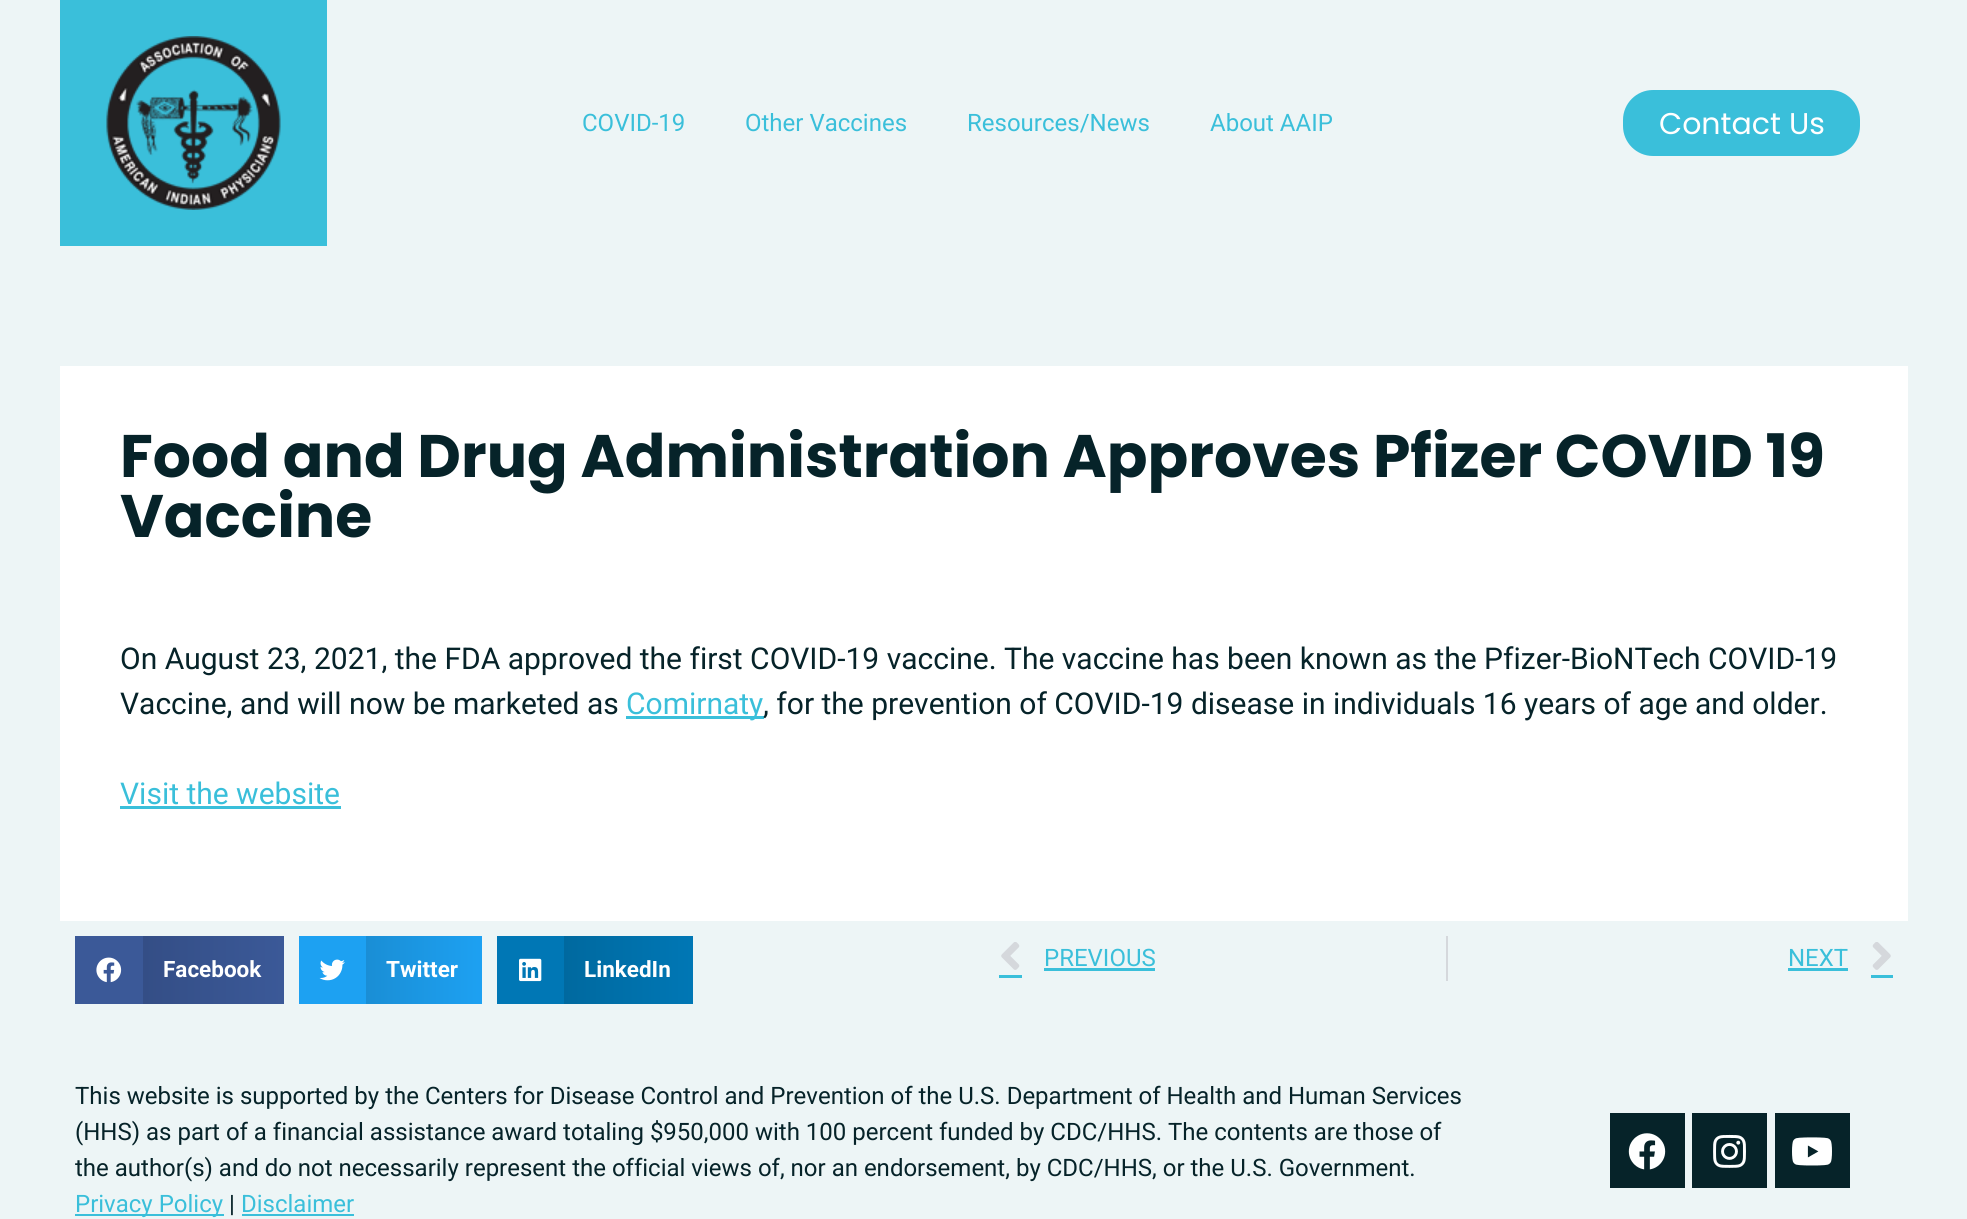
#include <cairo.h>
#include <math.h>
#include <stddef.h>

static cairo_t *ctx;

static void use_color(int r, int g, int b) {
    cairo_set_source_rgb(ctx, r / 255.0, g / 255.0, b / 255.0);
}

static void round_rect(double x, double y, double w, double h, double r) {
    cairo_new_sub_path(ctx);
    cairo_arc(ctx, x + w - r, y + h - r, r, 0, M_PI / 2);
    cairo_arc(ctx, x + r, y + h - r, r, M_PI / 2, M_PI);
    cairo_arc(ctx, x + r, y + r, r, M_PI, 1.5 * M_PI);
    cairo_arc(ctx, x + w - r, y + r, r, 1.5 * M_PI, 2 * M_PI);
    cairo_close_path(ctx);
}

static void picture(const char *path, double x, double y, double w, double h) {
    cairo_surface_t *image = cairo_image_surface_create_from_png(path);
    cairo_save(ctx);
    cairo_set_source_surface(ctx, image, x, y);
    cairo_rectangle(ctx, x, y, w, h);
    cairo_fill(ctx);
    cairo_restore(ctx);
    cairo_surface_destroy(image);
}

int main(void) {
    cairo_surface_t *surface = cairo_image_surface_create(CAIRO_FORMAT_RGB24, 1967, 1219);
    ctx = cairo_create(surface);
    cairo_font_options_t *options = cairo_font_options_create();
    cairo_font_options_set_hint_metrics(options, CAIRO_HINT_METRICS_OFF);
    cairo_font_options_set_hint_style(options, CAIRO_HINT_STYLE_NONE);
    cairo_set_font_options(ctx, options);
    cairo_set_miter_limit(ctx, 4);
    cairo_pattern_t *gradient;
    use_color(237, 245, 246);
    cairo_paint(ctx);
    use_color(58, 191, 218);
    cairo_rectangle(ctx, 60, 0, 267, 246);
    cairo_fill(ctx);
    picture("img1.png", 106, 36, 175, 174);
    cairo_select_font_face(ctx, "Roboto", CAIRO_FONT_SLANT_NORMAL, CAIRO_FONT_WEIGHT_NORMAL);
    cairo_set_font_size(ctx, 24);
    cairo_move_to(ctx, 582, 131);
    cairo_show_text(ctx, "COVID-19");
    cairo_move_to(ctx, 745, 131);
    cairo_show_text(ctx, "Other Vaccines");
    cairo_move_to(ctx, 967, 131);
    cairo_show_text(ctx, "Resources/News");
    cairo_move_to(ctx, 1210, 131);
    cairo_show_text(ctx, "About AAIP");
    round_rect(1623, 90, 237, 66, 30);
    cairo_fill(ctx);
    cairo_select_font_face(ctx, "Poppins", CAIRO_FONT_SLANT_NORMAL, CAIRO_FONT_WEIGHT_NORMAL);
    cairo_set_font_size(ctx, 30);
    use_color(255, 255, 255);
    cairo_move_to(ctx, 1659, 134);
    cairo_show_text(ctx, "Contact Us");
    cairo_rectangle(ctx, 60, 366, 1848, 555);
    cairo_fill(ctx);
    cairo_select_font_face(ctx, "Poppins", CAIRO_FONT_SLANT_NORMAL, CAIRO_FONT_WEIGHT_BOLD);
    cairo_set_font_size(ctx, 60);
    use_color(6, 35, 41);
    cairo_move_to(ctx, 120, 477);
    cairo_show_text(ctx, "Food and Drug Administration Approves Pfizer COVID 19");
    cairo_move_to(ctx, 120, 537);
    cairo_show_text(ctx, "Vaccine");
    cairo_select_font_face(ctx, "Roboto", CAIRO_FONT_SLANT_NORMAL, CAIRO_FONT_WEIGHT_NORMAL);
    cairo_set_font_size(ctx, 30);
    cairo_move_to(ctx, 120, 669);
    cairo_show_text(ctx, "On August 23, 2021, the FDA approved the first COVID-19 vaccine. The vaccine has been known as the Pfizer-BioNTech COVID-19");
    cairo_move_to(ctx, 120, 714);
    cairo_show_text(ctx, "Vaccine, and will now be marketed as");
    use_color(58, 191, 218);
    cairo_rectangle(ctx, 626, 716, 138, 3);
    cairo_fill(ctx);
    cairo_move_to(ctx, 626, 714);
    cairo_show_text(ctx, "Comirnaty");
    use_color(6, 35, 41);
    cairo_move_to(ctx, 763, 714);
    cairo_show_text(ctx, ", for the prevention of COVID-19 disease in individuals 16 years of age and older.");
    use_color(58, 191, 218);
    cairo_move_to(ctx, 120, 804);
    cairo_show_text(ctx, "Visit the website");
    cairo_rectangle(ctx, 120, 806, 221, 3);
    cairo_fill(ctx);
    picture("img2.png", 1001, 942, 19, 28);
    cairo_rectangle(ctx, 999, 975, 23, 3);
    cairo_fill(ctx);
    cairo_set_font_size(ctx, 24);
    cairo_move_to(ctx, 1044, 966);
    cairo_show_text(ctx, "PREVIOUS");
    cairo_rectangle(ctx, 1044, 968, 111, 3);
    cairo_fill(ctx);
    use_color(213, 216, 220);
    cairo_rectangle(ctx, 1446, 936, 2, 45);
    cairo_fill(ctx);
    use_color(58, 191, 218);
    cairo_move_to(ctx, 1788, 966);
    cairo_show_text(ctx, "NEXT");
    cairo_rectangle(ctx, 1788, 968, 60, 3);
    cairo_fill(ctx);
    picture("img3.png", 1872, 942, 19, 28);
    cairo_rectangle(ctx, 1871, 975, 22, 3);
    cairo_fill(ctx);
    use_color(59, 89, 152);
    cairo_rectangle(ctx, 75, 936, 68, 68);
    cairo_fill(ctx);
    picture("img4.png", 96, 957, 26, 26);
    gradient = cairo_pattern_create_linear(143, 970, 284, 970);
    cairo_pattern_add_color_stop_rgba(gradient, 0, 0.204, 0.306, 0.525, 1);
    cairo_pattern_add_color_stop_rgba(gradient, 1, 0.231, 0.349, 0.596, 1);
    cairo_set_source(ctx, gradient);
    cairo_pattern_destroy(gradient);
    cairo_rectangle(ctx, 143, 936, 141, 68);
    cairo_fill(ctx);
    cairo_select_font_face(ctx, "Roboto", CAIRO_FONT_SLANT_NORMAL, CAIRO_FONT_WEIGHT_BOLD);
    cairo_set_font_size(ctx, 22.5);
    use_color(255, 255, 255);
    cairo_move_to(ctx, 163, 977);
    cairo_show_text(ctx, "Facebook");
    use_color(29, 161, 242);
    cairo_rectangle(ctx, 299, 936, 67, 68);
    cairo_fill(ctx);
    picture("img5.png", 319, 959, 26, 22);
    gradient = cairo_pattern_create_linear(366, 970, 482, 970);
    cairo_pattern_add_color_stop_rgba(gradient, 0, 0.102, 0.557, 0.835, 1);
    cairo_pattern_add_color_stop_rgba(gradient, 1, 0.114, 0.631, 0.949, 1);
    cairo_set_source(ctx, gradient);
    cairo_pattern_destroy(gradient);
    cairo_rectangle(ctx, 366, 936, 116, 68);
    cairo_fill(ctx);
    use_color(255, 255, 255);
    cairo_move_to(ctx, 386, 977);
    cairo_show_text(ctx, "Twitter");
    use_color(0, 119, 181);
    cairo_rectangle(ctx, 497, 936, 67, 68);
    cairo_fill(ctx);
    picture("img6.png", 519, 958, 23, 24);
    gradient = cairo_pattern_create_linear(564, 970, 693, 970);
    cairo_pattern_add_color_stop_rgba(gradient, 0, 0, 0.412, 0.624, 1);
    cairo_pattern_add_color_stop_rgba(gradient, 1, 0, 0.467, 0.71, 1);
    cairo_set_source(ctx, gradient);
    cairo_pattern_destroy(gradient);
    cairo_rectangle(ctx, 564, 936, 129, 68);
    cairo_fill(ctx);
    use_color(255, 255, 255);
    cairo_move_to(ctx, 584, 977);
    cairo_show_text(ctx, "LinkedIn");
    cairo_select_font_face(ctx, "Roboto", CAIRO_FONT_SLANT_NORMAL, CAIRO_FONT_WEIGHT_NORMAL);
    cairo_set_font_size(ctx, 24);
    use_color(6, 35, 41);
    cairo_move_to(ctx, 75, 1104);
    cairo_show_text(ctx, "This website is supported by the Centers for Disease Control and Prevention of the U.S. Department of Health and Human Services");
    cairo_move_to(ctx, 75, 1140);
    cairo_show_text(ctx, "(HHS) as part of a financial assistance award totaling $950,000 with 100 percent funded by CDC/HHS. The contents are those of");
    cairo_move_to(ctx, 75, 1176);
    cairo_show_text(ctx, "the author(s) and do not necessarily represent the official views of, nor an endorsement, by CDC/HHS, or the U.S. Government.");
    use_color(58, 191, 218);
    cairo_rectangle(ctx, 75, 1214, 149, 2);
    cairo_fill(ctx);
    cairo_move_to(ctx, 75, 1212);
    cairo_show_text(ctx, "Privacy Policy");
    use_color(6, 35, 41);
    cairo_move_to(ctx, 229, 1212);
    cairo_show_text(ctx, "|");
    use_color(58, 191, 218);
    cairo_move_to(ctx, 241, 1212);
    cairo_show_text(ctx, "Disclaimer");
    cairo_rectangle(ctx, 242, 1214, 112, 2);
    cairo_fill(ctx);
    use_color(6, 35, 41);
    cairo_rectangle(ctx, 1610, 1113, 75, 75);
    cairo_fill(ctx);
    picture("img7.png", 1628, 1133, 38, 37);
    cairo_rectangle(ctx, 1692, 1113, 75, 75);
    cairo_fill(ctx);
    picture("img8.png", 1713, 1134, 33, 34);
    cairo_rectangle(ctx, 1775, 1113, 75, 75);
    cairo_fill(ctx);
    picture("img9.png", 1792, 1137, 40, 29);
    cairo_surface_write_to_png(surface, "result.png");
    cairo_font_options_destroy(options);
    cairo_destroy(ctx);
    cairo_surface_destroy(surface);
    return 0;
}
